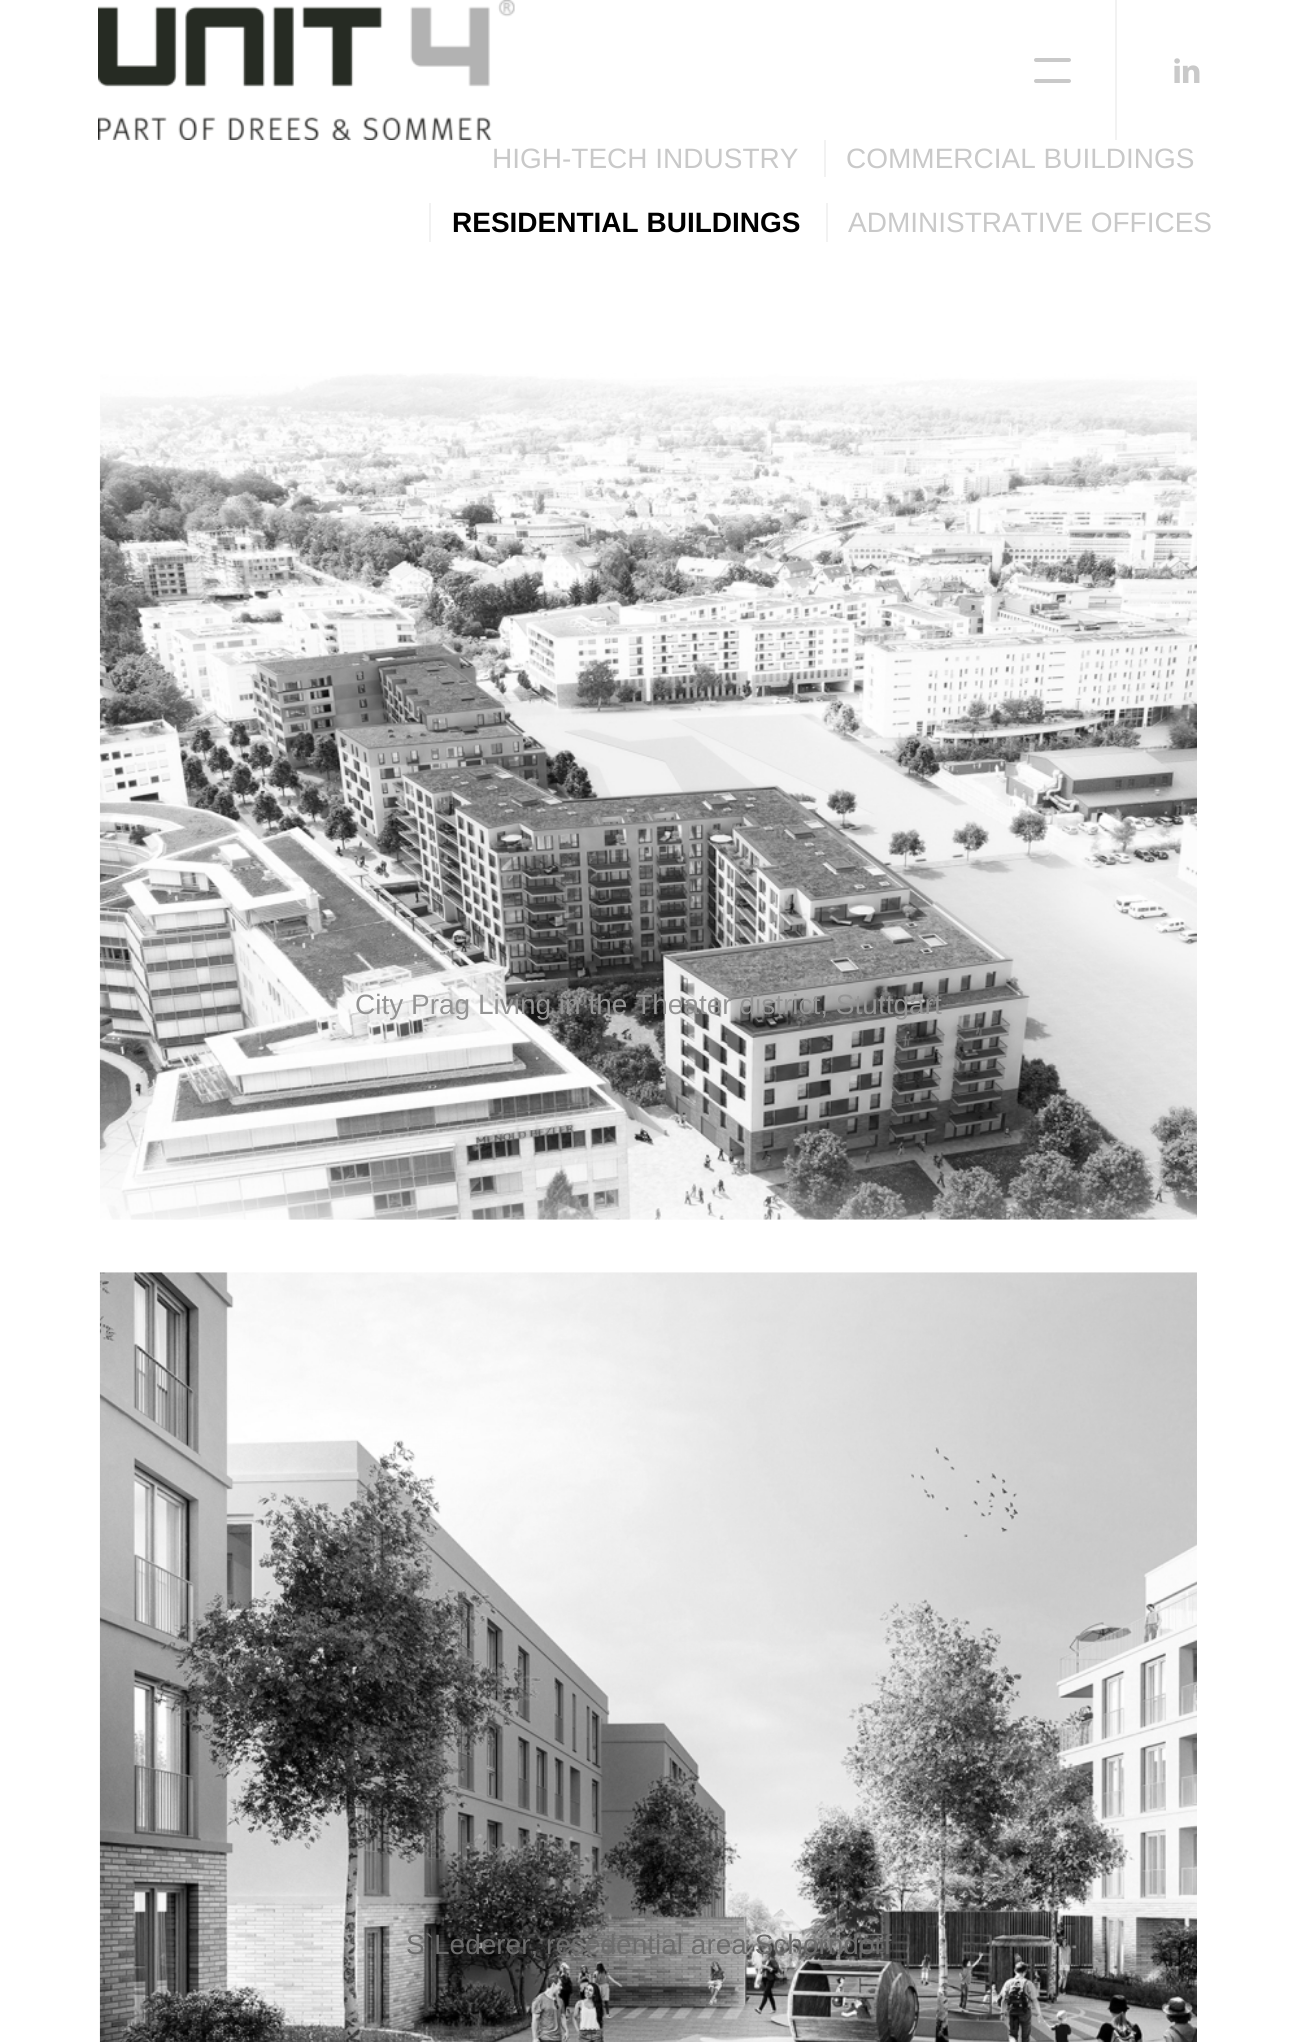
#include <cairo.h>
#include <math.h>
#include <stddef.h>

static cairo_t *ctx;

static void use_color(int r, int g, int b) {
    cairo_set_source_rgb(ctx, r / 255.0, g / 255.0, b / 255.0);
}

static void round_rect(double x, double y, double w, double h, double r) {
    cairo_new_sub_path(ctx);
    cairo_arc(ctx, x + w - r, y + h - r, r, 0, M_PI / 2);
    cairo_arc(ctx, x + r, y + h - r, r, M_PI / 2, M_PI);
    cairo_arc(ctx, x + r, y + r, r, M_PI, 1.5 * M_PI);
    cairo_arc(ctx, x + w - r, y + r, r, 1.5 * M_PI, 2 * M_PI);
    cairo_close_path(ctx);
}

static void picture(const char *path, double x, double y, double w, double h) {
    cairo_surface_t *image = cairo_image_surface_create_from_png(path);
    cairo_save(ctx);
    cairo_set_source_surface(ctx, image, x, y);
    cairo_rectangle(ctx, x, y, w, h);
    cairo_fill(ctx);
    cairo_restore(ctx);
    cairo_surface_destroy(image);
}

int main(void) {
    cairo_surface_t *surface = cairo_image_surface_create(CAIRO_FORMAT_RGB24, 1310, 2042);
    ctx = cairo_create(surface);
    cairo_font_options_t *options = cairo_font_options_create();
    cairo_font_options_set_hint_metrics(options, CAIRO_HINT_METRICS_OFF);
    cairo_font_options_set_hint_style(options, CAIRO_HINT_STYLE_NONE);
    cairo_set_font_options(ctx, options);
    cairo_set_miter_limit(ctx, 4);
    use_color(255, 255, 255);
    cairo_paint(ctx);
    picture("img1.png", 98, 0, 417, 140);
    use_color(242, 242, 242);
    cairo_rectangle(ctx, 1115, 0, 2, 140);
    cairo_fill(ctx);
    use_color(201, 201, 201);
    round_rect(1034, 58, 37, 4, 2);
    cairo_fill(ctx);
    round_rect(1034, 79, 37, 4, 2);
    cairo_fill(ctx);
    picture("img2.png", 1174, 58, 26, 25);
    cairo_select_font_face(ctx, "Liberation Sans", CAIRO_FONT_SLANT_NORMAL, CAIRO_FONT_WEIGHT_NORMAL);
    cairo_set_font_size(ctx, 28);
    cairo_move_to(ctx, 492, 168);
    cairo_show_text(ctx, "HIGH-TECH INDUSTRY");
    use_color(242, 242, 242);
    cairo_rectangle(ctx, 824, 140, 2, 37);
    cairo_fill(ctx);
    use_color(201, 201, 201);
    cairo_move_to(ctx, 846, 168);
    cairo_show_text(ctx, "COMMERCIAL BUILDINGS");
    use_color(242, 242, 242);
    cairo_rectangle(ctx, 429, 203, 2, 39);
    cairo_fill(ctx);
    cairo_select_font_face(ctx, "Liberation Sans", CAIRO_FONT_SLANT_NORMAL, CAIRO_FONT_WEIGHT_BOLD);
    use_color(0, 0, 0);
    cairo_move_to(ctx, 452, 232);
    cairo_show_text(ctx, "RESIDENTIAL BUILDINGS");
    use_color(242, 242, 242);
    cairo_rectangle(ctx, 826, 203, 2, 39);
    cairo_fill(ctx);
    cairo_select_font_face(ctx, "Liberation Sans", CAIRO_FONT_SLANT_NORMAL, CAIRO_FONT_WEIGHT_NORMAL);
    use_color(201, 201, 201);
    cairo_move_to(ctx, 848, 232);
    cairo_show_text(ctx, "ADMINISTRATIVE OFFICES");
    picture("img3.png", 99, 373, 1098, 847);
    use_color(148, 148, 148);
    cairo_move_to(ctx, 355, 1014);
    cairo_show_text(ctx, "City Prag Living in the Theater district, Stuttgart");
    picture("img4.png", 99, 1272, 1098, 770);
    use_color(108, 108, 108);
    cairo_move_to(ctx, 406, 1954);
    cairo_show_text(ctx, "S`Lederer, resedential area Schorndorf");
    cairo_surface_write_to_png(surface, "result.png");
    cairo_font_options_destroy(options);
    cairo_destroy(ctx);
    cairo_surface_destroy(surface);
    return 0;
}
